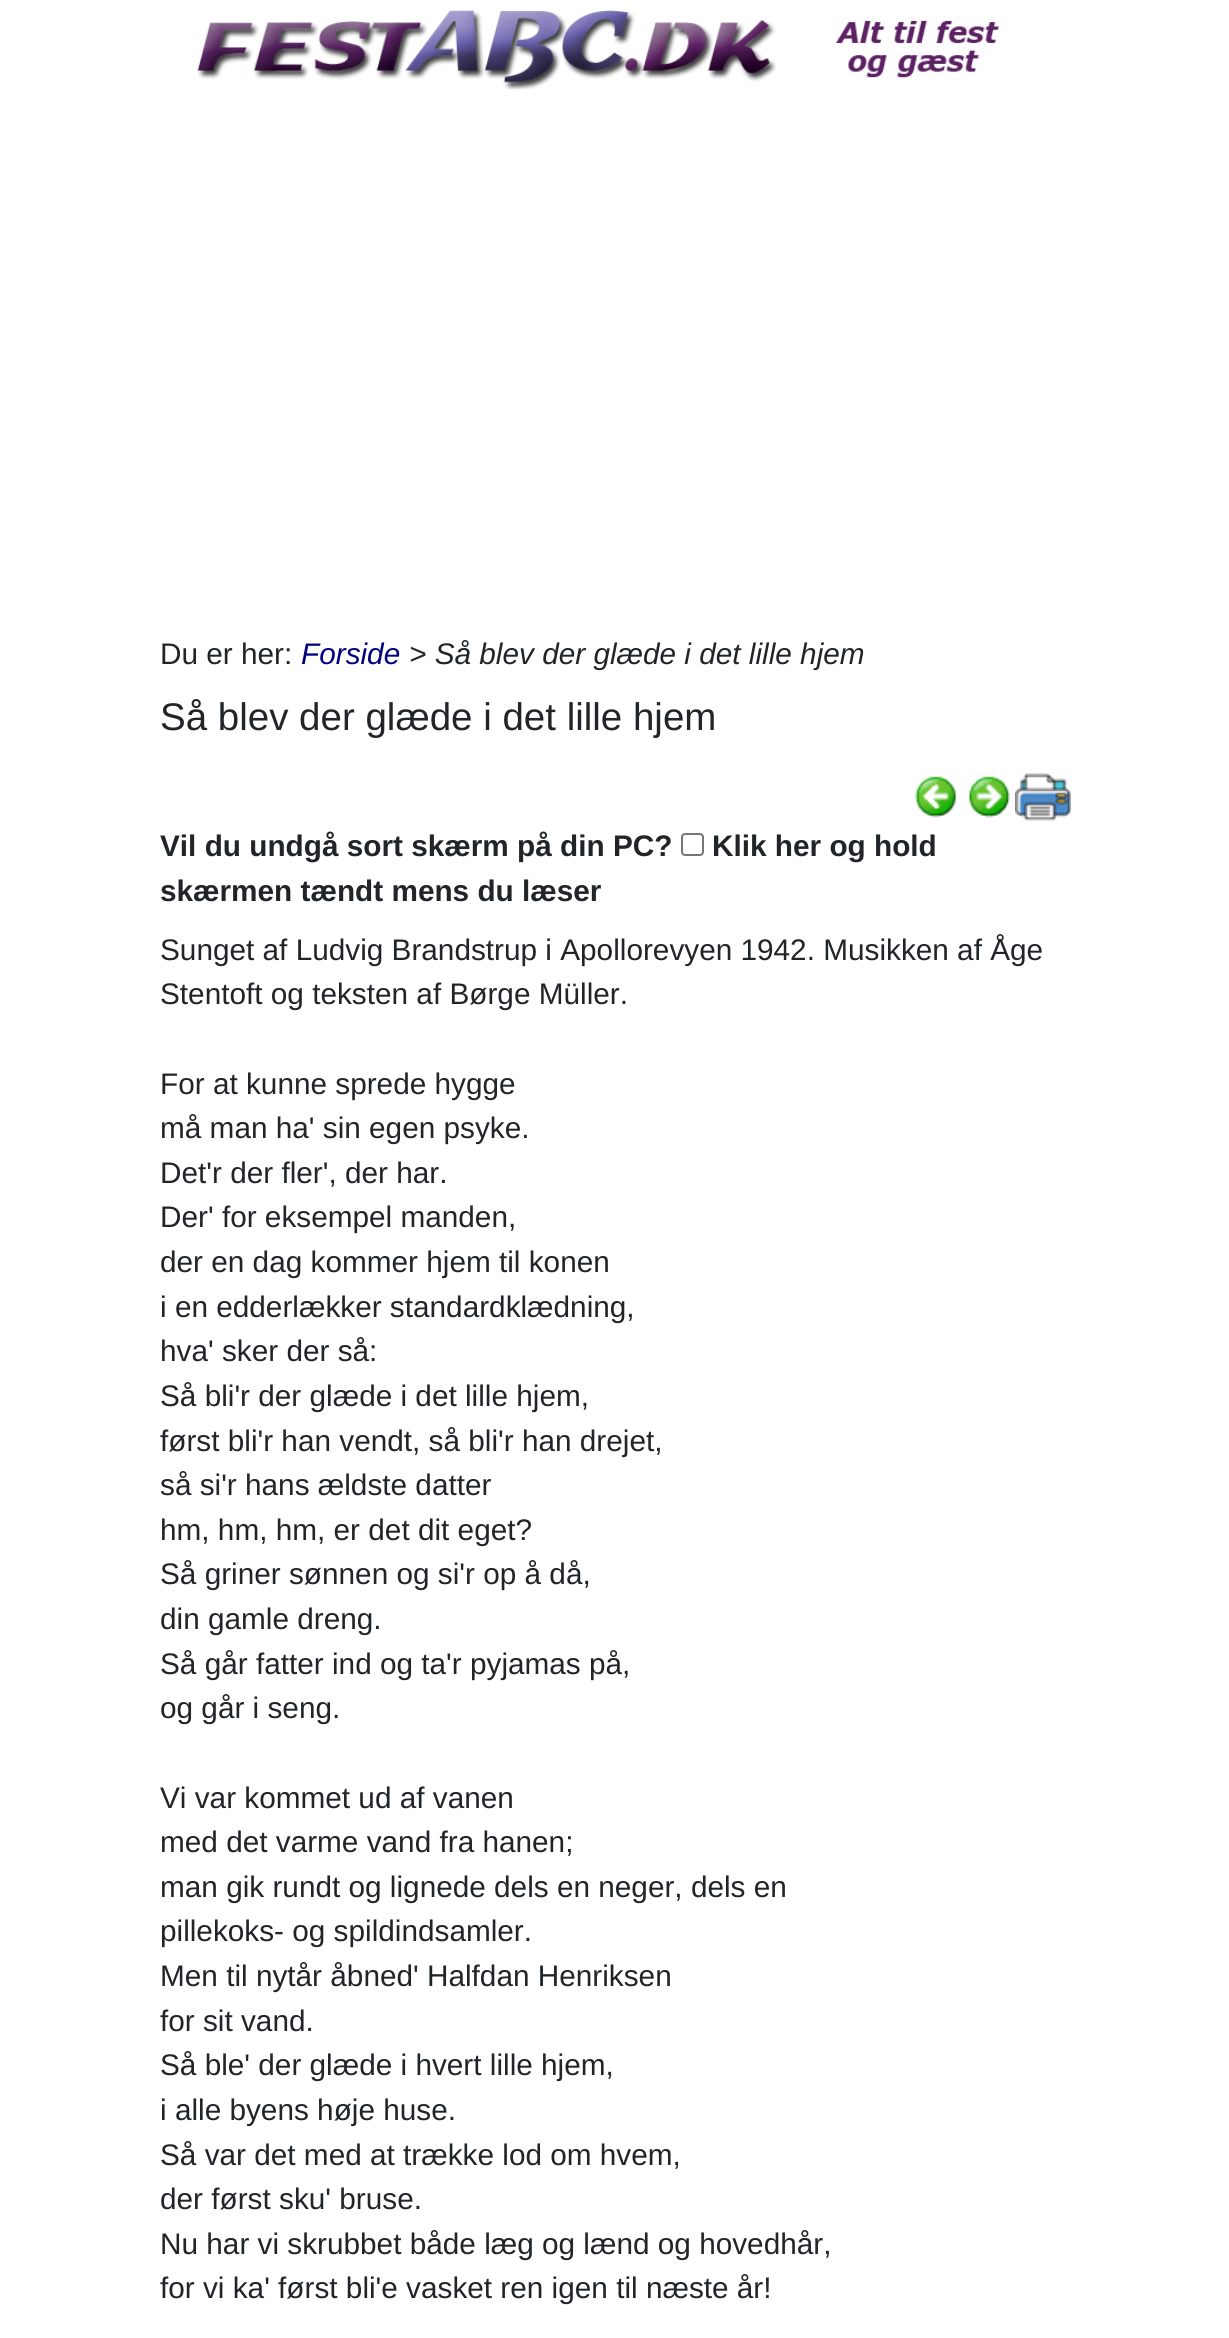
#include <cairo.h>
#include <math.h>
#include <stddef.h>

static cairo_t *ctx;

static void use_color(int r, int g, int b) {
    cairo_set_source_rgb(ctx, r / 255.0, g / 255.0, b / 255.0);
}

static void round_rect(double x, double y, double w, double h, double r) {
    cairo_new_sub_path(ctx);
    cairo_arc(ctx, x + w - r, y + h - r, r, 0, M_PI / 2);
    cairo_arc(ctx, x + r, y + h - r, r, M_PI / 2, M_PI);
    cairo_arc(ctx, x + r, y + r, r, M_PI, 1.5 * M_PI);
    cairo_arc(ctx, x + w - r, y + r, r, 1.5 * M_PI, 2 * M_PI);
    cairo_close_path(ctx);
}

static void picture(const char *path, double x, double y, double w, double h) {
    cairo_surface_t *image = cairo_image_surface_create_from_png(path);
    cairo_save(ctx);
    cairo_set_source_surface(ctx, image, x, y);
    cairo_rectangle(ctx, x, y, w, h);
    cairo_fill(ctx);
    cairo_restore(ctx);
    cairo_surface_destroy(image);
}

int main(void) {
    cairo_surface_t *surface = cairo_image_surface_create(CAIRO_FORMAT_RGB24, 1229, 2338);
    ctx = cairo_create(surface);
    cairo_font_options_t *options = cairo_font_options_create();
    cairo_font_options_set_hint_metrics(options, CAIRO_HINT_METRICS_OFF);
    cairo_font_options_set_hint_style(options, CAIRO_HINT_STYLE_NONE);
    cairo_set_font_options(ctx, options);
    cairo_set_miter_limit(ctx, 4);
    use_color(255, 255, 255);
    cairo_paint(ctx);
    picture("img1.png", 197, 10, 802, 80);
    cairo_select_font_face(ctx, "Liberation Sans", CAIRO_FONT_SLANT_NORMAL, CAIRO_FONT_WEIGHT_NORMAL);
    cairo_set_font_size(ctx, 29.75);
    use_color(33, 37, 41);
    cairo_move_to(ctx, 160, 664);
    cairo_show_text(ctx, "Du er her:");
    cairo_select_font_face(ctx, "Liberation Sans", CAIRO_FONT_SLANT_ITALIC, CAIRO_FONT_WEIGHT_NORMAL);
    use_color(0, 0, 128);
    cairo_move_to(ctx, 301, 664);
    cairo_show_text(ctx, "Forside");
    use_color(33, 37, 41);
    cairo_move_to(ctx, 409, 664);
    cairo_show_text(ctx, "> Så blev der glæde i det lille hjem");
    cairo_select_font_face(ctx, "Liberation Sans", CAIRO_FONT_SLANT_NORMAL, CAIRO_FONT_WEIGHT_NORMAL);
    cairo_set_font_size(ctx, 38.5);
    cairo_move_to(ctx, 160, 730);
    cairo_show_text(ctx, "Så blev der glæde i det lille hjem");
    picture("img2.png", 915, 776, 41, 42);
    picture("img3.png", 969, 776, 42, 42);
    picture("img4.png", 1015, 773, 56, 48);
    cairo_select_font_face(ctx, "Liberation Sans", CAIRO_FONT_SLANT_NORMAL, CAIRO_FONT_WEIGHT_BOLD);
    cairo_set_font_size(ctx, 29.75);
    cairo_move_to(ctx, 160, 856);
    cairo_show_text(ctx, "Vil du undgå sort skærm på din PC?");
    round_rect(682, 834, 21, 21, 3);
    use_color(118, 118, 118);
    cairo_stroke(ctx);
    use_color(33, 37, 41);
    cairo_move_to(ctx, 712, 856);
    cairo_show_text(ctx, "Klik her og hold");
    cairo_move_to(ctx, 160, 901);
    cairo_show_text(ctx, "skærmen tændt mens du læser");
    cairo_select_font_face(ctx, "Liberation Sans", CAIRO_FONT_SLANT_NORMAL, CAIRO_FONT_WEIGHT_NORMAL);
    cairo_move_to(ctx, 160, 960);
    cairo_show_text(ctx, "Sunget af Ludvig Brandstrup i Apollorevyen 1942. Musikken af Åge");
    cairo_move_to(ctx, 160, 1004);
    cairo_show_text(ctx, "Stentoft og teksten af Børge Müller.");
    cairo_move_to(ctx, 160, 1094);
    cairo_show_text(ctx, "For at kunne sprede hygge");
    cairo_move_to(ctx, 160, 1138);
    cairo_show_text(ctx, "må man ha' sin egen psyke.");
    cairo_move_to(ctx, 160, 1183);
    cairo_show_text(ctx, "Det'r der fler', der har.");
    cairo_move_to(ctx, 160, 1227);
    cairo_show_text(ctx, "Der' for eksempel manden,");
    cairo_move_to(ctx, 160, 1272);
    cairo_show_text(ctx, "der en dag kommer hjem til konen");
    cairo_move_to(ctx, 160, 1317);
    cairo_show_text(ctx, "i en edderlækker standardklædning,");
    cairo_move_to(ctx, 160, 1361);
    cairo_show_text(ctx, "hva' sker der så:");
    cairo_move_to(ctx, 160, 1406);
    cairo_show_text(ctx, "Så bli'r der glæde i det lille hjem,");
    cairo_move_to(ctx, 160, 1451);
    cairo_show_text(ctx, "først bli'r han vendt, så bli'r han drejet,");
    cairo_move_to(ctx, 160, 1495);
    cairo_show_text(ctx, "så si'r hans ældste datter");
    cairo_move_to(ctx, 160, 1540);
    cairo_show_text(ctx, "hm, hm, hm, er det dit eget?");
    cairo_move_to(ctx, 160, 1584);
    cairo_show_text(ctx, "Så griner sønnen og si'r op å då,");
    cairo_move_to(ctx, 160, 1629);
    cairo_show_text(ctx, "din gamle dreng.");
    cairo_move_to(ctx, 160, 1674);
    cairo_show_text(ctx, "Så går fatter ind og ta'r pyjamas på,");
    cairo_move_to(ctx, 160, 1718);
    cairo_show_text(ctx, "og går i seng.");
    cairo_move_to(ctx, 160, 1808);
    cairo_show_text(ctx, "Vi var kommet ud af vanen");
    cairo_move_to(ctx, 160, 1852);
    cairo_show_text(ctx, "med det varme vand fra hanen;");
    cairo_move_to(ctx, 160, 1897);
    cairo_show_text(ctx, "man gik rundt og lignede dels en neger, dels en");
    cairo_move_to(ctx, 160, 1941);
    cairo_show_text(ctx, "pillekoks- og spildindsamler.");
    cairo_move_to(ctx, 160, 1986);
    cairo_show_text(ctx, "Men til nytår åbned' Halfdan Henriksen");
    cairo_move_to(ctx, 160, 2031);
    cairo_show_text(ctx, "for sit vand.");
    cairo_move_to(ctx, 160, 2075);
    cairo_show_text(ctx, "Så ble' der glæde i hvert lille hjem,");
    cairo_move_to(ctx, 160, 2120);
    cairo_show_text(ctx, "i alle byens høje huse.");
    cairo_move_to(ctx, 160, 2165);
    cairo_show_text(ctx, "Så var det med at trække lod om hvem,");
    cairo_move_to(ctx, 160, 2209);
    cairo_show_text(ctx, "der først sku' bruse.");
    cairo_move_to(ctx, 160, 2254);
    cairo_show_text(ctx, "Nu har vi skrubbet både læg og lænd og hovedhår,");
    cairo_move_to(ctx, 160, 2298);
    cairo_show_text(ctx, "for vi ka' først bli'e vasket ren igen til næste år!");
    cairo_surface_write_to_png(surface, "result.png");
    cairo_font_options_destroy(options);
    cairo_destroy(ctx);
    cairo_surface_destroy(surface);
    return 0;
}
